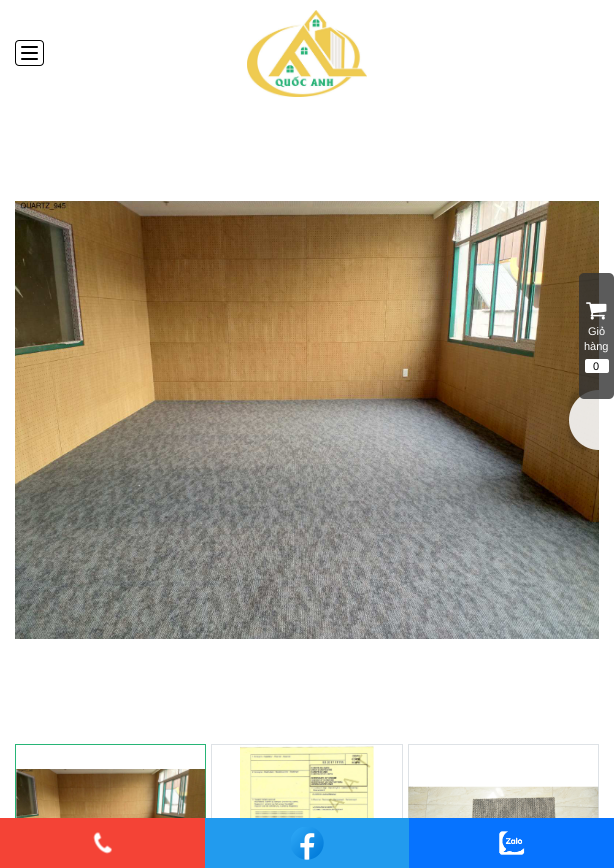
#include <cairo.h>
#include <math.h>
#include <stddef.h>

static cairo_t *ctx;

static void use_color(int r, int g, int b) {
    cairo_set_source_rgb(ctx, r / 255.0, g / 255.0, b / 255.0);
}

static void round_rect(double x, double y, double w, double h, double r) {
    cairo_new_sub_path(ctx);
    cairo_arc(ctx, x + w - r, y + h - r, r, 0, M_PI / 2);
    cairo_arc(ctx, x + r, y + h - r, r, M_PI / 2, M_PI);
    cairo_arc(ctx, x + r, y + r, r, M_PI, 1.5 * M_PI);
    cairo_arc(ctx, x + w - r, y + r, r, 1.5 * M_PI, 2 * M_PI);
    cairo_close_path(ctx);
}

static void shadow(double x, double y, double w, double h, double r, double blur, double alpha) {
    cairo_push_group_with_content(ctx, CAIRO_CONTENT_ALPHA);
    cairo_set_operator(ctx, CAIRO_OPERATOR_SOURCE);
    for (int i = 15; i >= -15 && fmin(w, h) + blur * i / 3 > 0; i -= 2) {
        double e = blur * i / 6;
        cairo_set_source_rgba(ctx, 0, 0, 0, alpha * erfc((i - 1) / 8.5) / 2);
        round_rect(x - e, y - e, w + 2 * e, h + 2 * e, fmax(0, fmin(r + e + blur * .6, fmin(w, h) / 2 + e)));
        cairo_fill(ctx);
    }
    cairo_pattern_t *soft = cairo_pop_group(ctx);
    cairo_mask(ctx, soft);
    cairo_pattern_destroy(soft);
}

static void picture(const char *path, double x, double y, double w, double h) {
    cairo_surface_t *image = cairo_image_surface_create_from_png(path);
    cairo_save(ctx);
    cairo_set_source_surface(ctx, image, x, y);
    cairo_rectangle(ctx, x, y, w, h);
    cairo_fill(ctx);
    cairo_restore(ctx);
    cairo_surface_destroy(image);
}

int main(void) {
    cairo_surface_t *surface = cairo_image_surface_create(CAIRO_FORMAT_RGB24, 614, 868);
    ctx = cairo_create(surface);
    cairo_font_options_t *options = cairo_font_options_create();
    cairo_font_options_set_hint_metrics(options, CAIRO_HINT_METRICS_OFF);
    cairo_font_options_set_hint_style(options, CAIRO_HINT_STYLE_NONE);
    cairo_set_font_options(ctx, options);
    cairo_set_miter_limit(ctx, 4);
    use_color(255, 255, 255);
    cairo_paint(ctx);
    round_rect(15.5, 40.5, 28, 25, 3.5);
    use_color(0, 0, 0);
    cairo_set_line_width(ctx, 1);
    cairo_stroke(ctx);
    round_rect(21, 46, 17, 2, 1);
    cairo_fill(ctx);
    round_rect(21, 52, 17, 2, 1);
    cairo_fill(ctx);
    round_rect(21, 58, 17, 2, 1);
    cairo_fill(ctx);
    picture("img1.png", 247, 10, 120, 87);
    picture("img2.png", 15, 201, 584, 438);
    cairo_save(ctx);
    cairo_rectangle(ctx, 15, 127, 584, 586);
    cairo_clip(ctx);
    cairo_set_fill_rule(ctx, CAIRO_FILL_RULE_EVEN_ODD);
    cairo_new_path(ctx);
    cairo_move_to(ctx, 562, 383);
    cairo_line_to(ctx, 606, 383);
    cairo_line_to(ctx, 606, 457);
    cairo_line_to(ctx, 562, 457);
    cairo_close_path(ctx);
    cairo_move_to(ctx, 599, 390);
    cairo_line_to(ctx, 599, 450);
    cairo_curve_to(ctx, 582.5, 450, 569, 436.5, 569, 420);
    cairo_curve_to(ctx, 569, 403.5, 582.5, 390, 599, 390);
    cairo_close_path(ctx);
    cairo_clip(ctx);
    use_color(0, 0, 0);
    shadow(569, 390, 30, 60, 30, 2, 0.18);
    cairo_restore(ctx);
    cairo_set_source_rgba(ctx, 0.969, 0.969, 0.969, 0.9);
    cairo_new_path(ctx);
    cairo_move_to(ctx, 599, 390);
    cairo_line_to(ctx, 599, 450);
    cairo_curve_to(ctx, 582.5, 450, 569, 436.5, 569, 420);
    cairo_curve_to(ctx, 569, 403.5, 582.5, 390, 599, 390);
    cairo_close_path(ctx);
    cairo_fill(ctx);
    cairo_rectangle(ctx, 15.5, 744.5, 190, 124);
    use_color(39, 181, 118);
    cairo_stroke(ctx);
    picture("img3.png", 16, 769, 190, 49);
    cairo_rectangle(ctx, 211.5, 744.5, 191, 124);
    use_color(222, 226, 230);
    cairo_stroke(ctx);
    picture("img4.png", 240, 745, 134, 73);
    cairo_rectangle(ctx, 408.5, 744.5, 190, 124);
    cairo_stroke(ctx);
    picture("img5.png", 408, 786, 191, 32);
    cairo_set_source_rgba(ctx, 0.2, 0.2, 0.2, 0.8);
    round_rect(579, 273, 35, 126, 5);
    cairo_fill(ctx);
    picture("img6.png", 586, 302, 21, 18);
    cairo_select_font_face(ctx, "Liberation Sans", CAIRO_FONT_SLANT_NORMAL, CAIRO_FONT_WEIGHT_NORMAL);
    cairo_set_font_size(ctx, 11);
    use_color(255, 255, 255);
    cairo_move_to(ctx, 588, 335);
    cairo_show_text(ctx, "Giỏ");
    cairo_move_to(ctx, 584, 350);
    cairo_show_text(ctx, "hàng");
    round_rect(585, 359, 24, 14, 2);
    cairo_fill(ctx);
    use_color(0, 0, 0);
    cairo_move_to(ctx, 593, 370);
    cairo_show_text(ctx, "0");
    use_color(244, 67, 54);
    cairo_rectangle(ctx, 0, 818, 205, 50);
    cairo_fill(ctx);
    picture("img7.png", 93, 832, 19, 22);
    use_color(34, 155, 238);
    cairo_rectangle(ctx, 205, 818, 204, 50);
    cairo_fill(ctx);
    picture("img8.png", 291, 827, 33, 33);
    use_color(6, 115, 255);
    cairo_rectangle(ctx, 409, 818, 205, 50);
    cairo_fill(ctx);
    picture("img9.png", 499, 831, 26, 24);
    cairo_surface_write_to_png(surface, "result.png");
    cairo_font_options_destroy(options);
    cairo_destroy(ctx);
    cairo_surface_destroy(surface);
    return 0;
}
